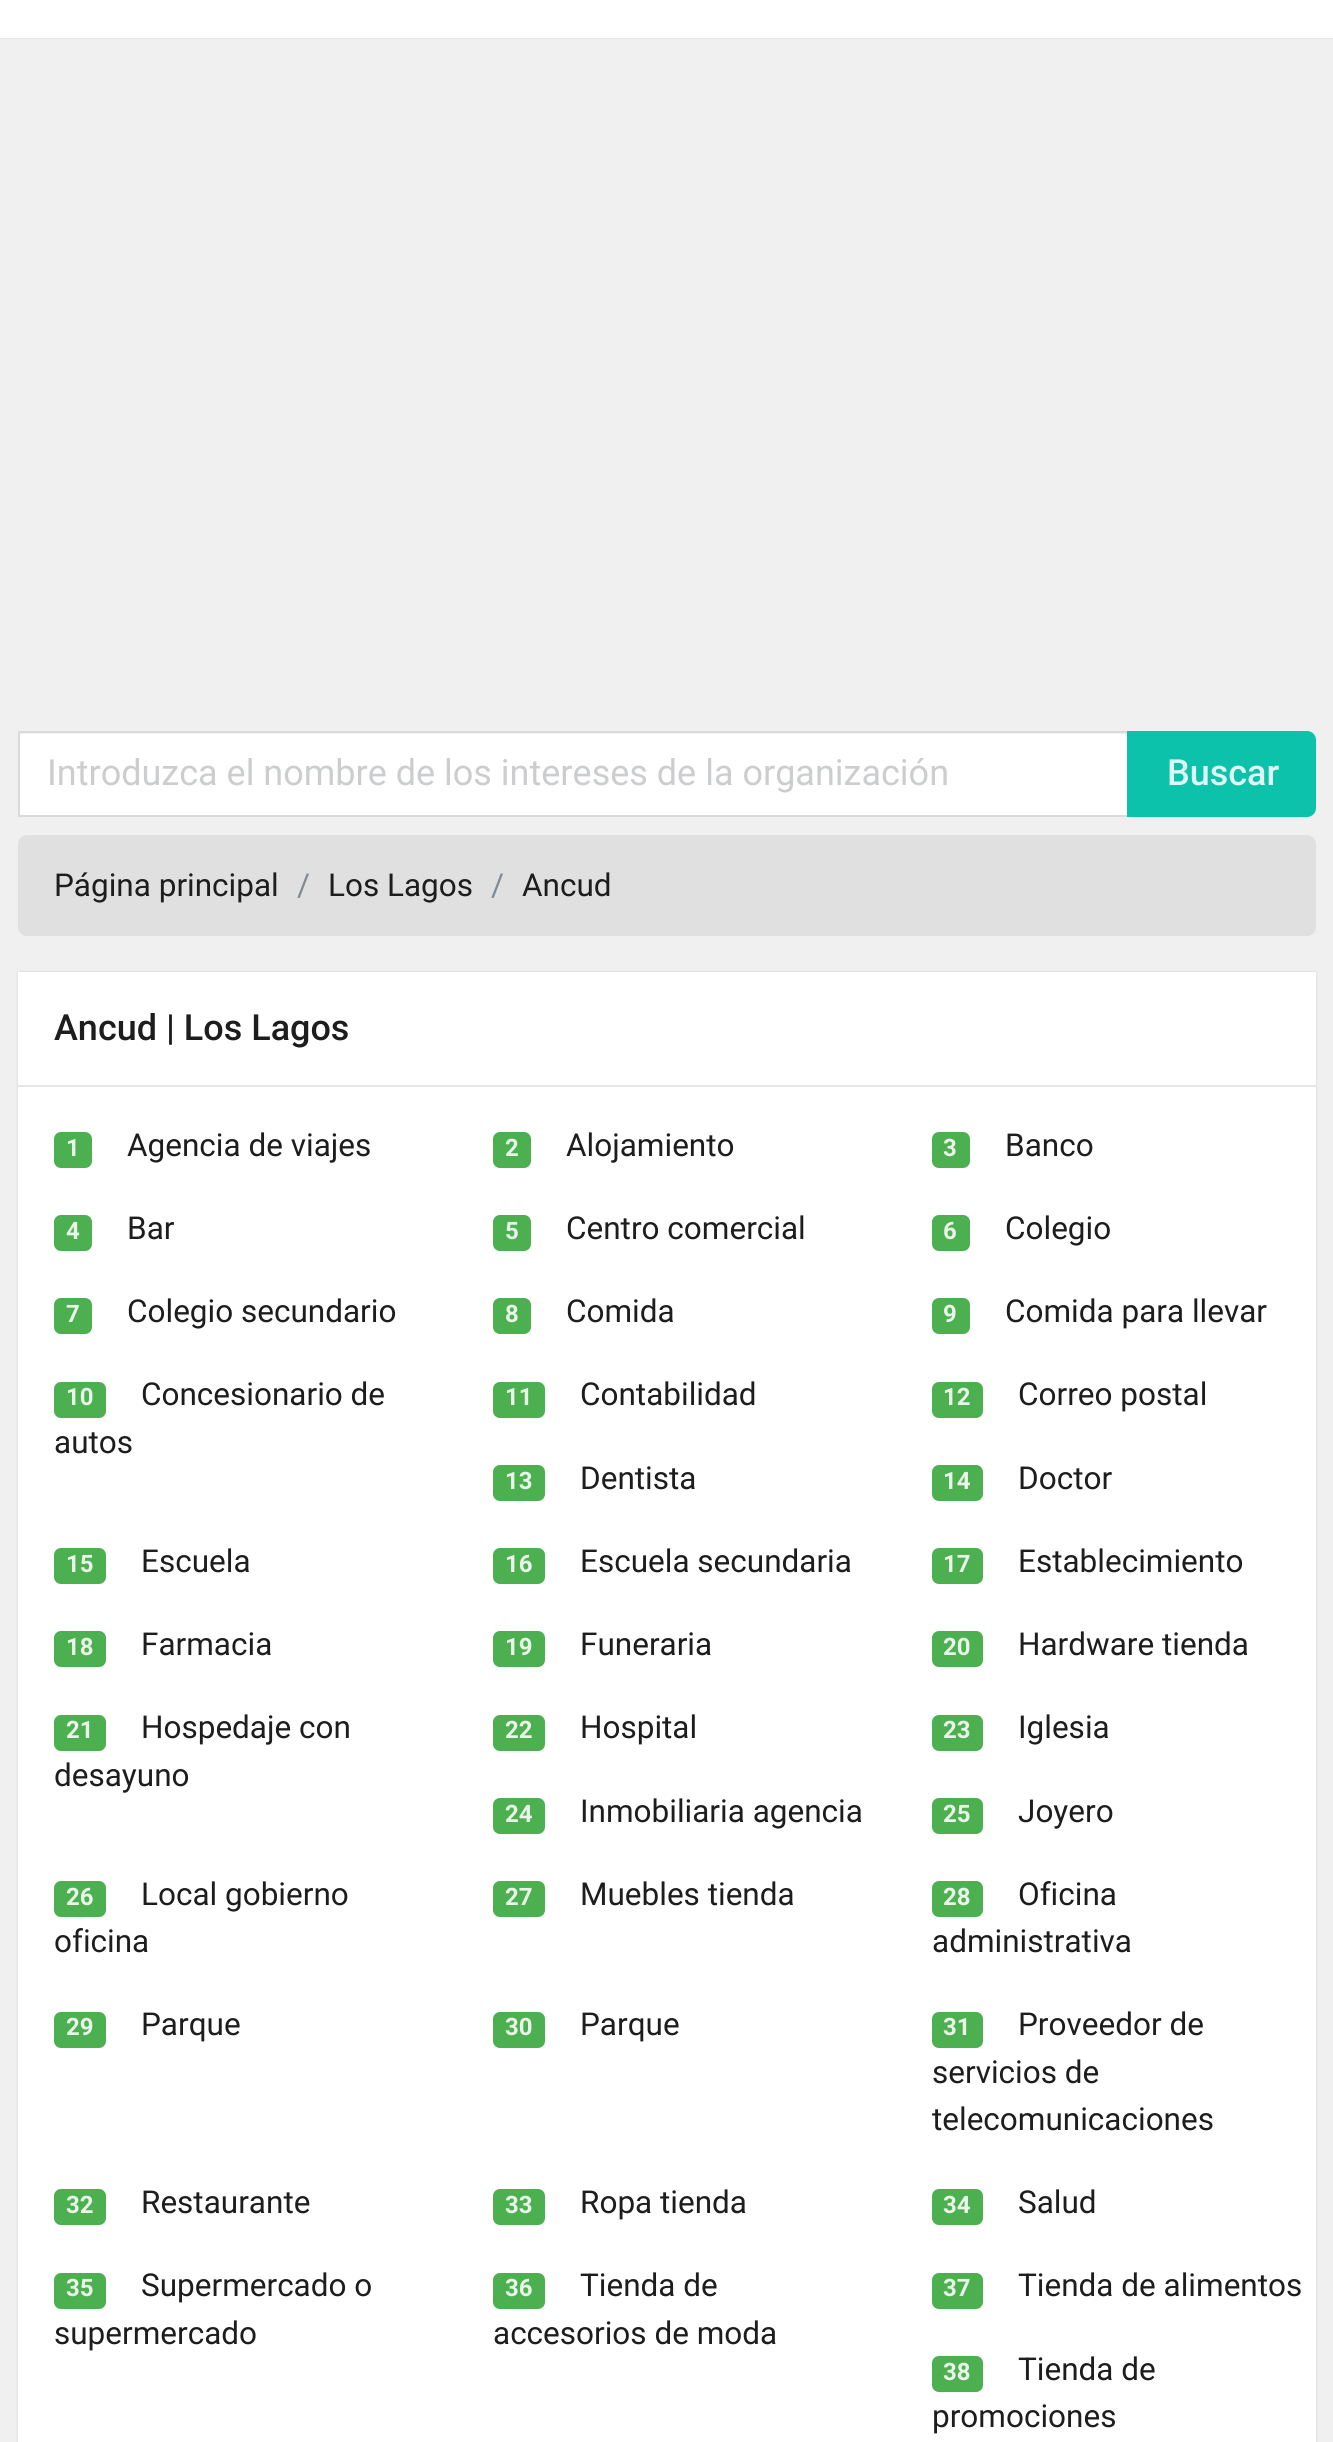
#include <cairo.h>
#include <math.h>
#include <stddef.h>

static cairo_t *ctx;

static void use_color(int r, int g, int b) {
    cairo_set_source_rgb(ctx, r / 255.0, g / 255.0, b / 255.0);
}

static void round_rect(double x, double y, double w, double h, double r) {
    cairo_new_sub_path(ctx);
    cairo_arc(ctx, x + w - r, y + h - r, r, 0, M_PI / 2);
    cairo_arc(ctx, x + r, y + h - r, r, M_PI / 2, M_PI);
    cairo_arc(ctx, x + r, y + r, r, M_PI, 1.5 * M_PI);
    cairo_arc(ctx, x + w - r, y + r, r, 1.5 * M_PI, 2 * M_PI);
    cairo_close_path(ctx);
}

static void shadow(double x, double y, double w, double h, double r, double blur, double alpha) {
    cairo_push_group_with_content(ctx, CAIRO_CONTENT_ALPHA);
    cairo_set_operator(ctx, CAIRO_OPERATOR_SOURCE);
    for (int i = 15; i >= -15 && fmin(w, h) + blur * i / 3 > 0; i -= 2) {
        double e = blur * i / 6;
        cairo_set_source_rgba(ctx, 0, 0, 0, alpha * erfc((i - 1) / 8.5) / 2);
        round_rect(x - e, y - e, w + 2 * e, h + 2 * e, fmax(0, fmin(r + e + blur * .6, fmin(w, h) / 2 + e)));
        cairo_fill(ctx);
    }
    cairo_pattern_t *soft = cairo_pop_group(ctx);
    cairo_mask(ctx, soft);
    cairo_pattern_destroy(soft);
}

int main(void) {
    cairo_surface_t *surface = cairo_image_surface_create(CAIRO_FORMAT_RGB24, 1333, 2442);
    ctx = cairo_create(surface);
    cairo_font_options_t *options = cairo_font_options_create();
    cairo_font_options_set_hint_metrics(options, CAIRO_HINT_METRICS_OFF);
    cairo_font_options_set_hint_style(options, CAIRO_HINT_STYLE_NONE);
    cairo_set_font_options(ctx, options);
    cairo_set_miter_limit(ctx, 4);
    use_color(240, 240, 240);
    cairo_paint(ctx);
    use_color(0, 0, 0);
    shadow(0, -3, 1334, 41, 0, 1, 0.15);
    use_color(255, 255, 255);
    cairo_rectangle(ctx, 0, 0, 1333, 38);
    cairo_fill(ctx);
    cairo_rectangle(ctx, 20, 734, 1107, 81);
    cairo_fill(ctx);
    cairo_rectangle(ctx, 19, 732, 1110, 84);
    use_color(216, 218, 220);
    cairo_stroke(ctx);
    cairo_select_font_face(ctx, "Roboto", CAIRO_FONT_SLANT_NORMAL, CAIRO_FONT_WEIGHT_NORMAL);
    cairo_set_font_size(ctx, 36);
    use_color(204, 205, 206);
    cairo_move_to(ctx, 47, 785);
    cairo_show_text(ctx, "Introduzca el nombre de los intereses de la organización");
    use_color(12, 194, 170);
    cairo_new_path(ctx);
    cairo_move_to(ctx, 1127, 731);
    cairo_line_to(ctx, 1307, 731);
    cairo_curve_to(ctx, 1312, 731, 1316, 735, 1316, 740);
    cairo_line_to(ctx, 1316, 808);
    cairo_curve_to(ctx, 1316, 813, 1312, 817, 1307, 817);
    cairo_line_to(ctx, 1127, 817);
    cairo_close_path(ctx);
    cairo_fill(ctx);
    cairo_select_font_face(ctx, "Roboto Medium", CAIRO_FONT_SLANT_NORMAL, CAIRO_FONT_WEIGHT_NORMAL);
    use_color(223, 247, 244);
    cairo_move_to(ctx, 1167, 785);
    cairo_show_text(ctx, "Buscar");
    use_color(224, 224, 224);
    round_rect(18, 835, 1298, 101, 9);
    cairo_fill(ctx);
    cairo_select_font_face(ctx, "Roboto", CAIRO_FONT_SLANT_NORMAL, CAIRO_FONT_WEIGHT_NORMAL);
    cairo_set_font_size(ctx, 31.5);
    use_color(29, 29, 29);
    cairo_move_to(ctx, 54, 896);
    cairo_show_text(ctx, "Página principal");
    use_color(129, 138, 145);
    cairo_move_to(ctx, 297, 896);
    cairo_show_text(ctx, "/");
    use_color(29, 29, 29);
    cairo_move_to(ctx, 328, 896);
    cairo_show_text(ctx, "Los Lagos");
    use_color(129, 138, 145);
    cairo_move_to(ctx, 491, 896);
    cairo_show_text(ctx, "/");
    use_color(29, 29, 29);
    cairo_move_to(ctx, 522, 896);
    cairo_show_text(ctx, "Ancud");
    use_color(0, 0, 0);
    shadow(18, 972, 1298, 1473, 0, 1, 0.15);
    use_color(255, 255, 255);
    cairo_rectangle(ctx, 18, 972, 1298, 1470);
    cairo_fill(ctx);
    cairo_select_font_face(ctx, "Roboto Medium", CAIRO_FONT_SLANT_NORMAL, CAIRO_FONT_WEIGHT_NORMAL);
    cairo_set_font_size(ctx, 36);
    use_color(29, 29, 29);
    cairo_move_to(ctx, 54, 1040);
    cairo_show_text(ctx, "Ancud | Los Lagos");
    use_color(230, 230, 230);
    cairo_rectangle(ctx, 18, 1085, 1298, 2);
    cairo_fill(ctx);
    use_color(76, 175, 80);
    round_rect(54, 1132, 38, 36, 7);
    cairo_fill(ctx);
    cairo_select_font_face(ctx, "Roboto", CAIRO_FONT_SLANT_NORMAL, CAIRO_FONT_WEIGHT_BOLD);
    cairo_set_font_size(ctx, 24);
    use_color(232, 245, 232);
    cairo_move_to(ctx, 66, 1156);
    cairo_show_text(ctx, "1");
    cairo_select_font_face(ctx, "Roboto", CAIRO_FONT_SLANT_NORMAL, CAIRO_FONT_WEIGHT_NORMAL);
    cairo_set_font_size(ctx, 31.5);
    use_color(29, 29, 29);
    cairo_move_to(ctx, 127, 1156);
    cairo_show_text(ctx, "Agencia de viajes");
    use_color(76, 175, 80);
    round_rect(493, 1132, 38, 36, 7);
    cairo_fill(ctx);
    cairo_select_font_face(ctx, "Roboto", CAIRO_FONT_SLANT_NORMAL, CAIRO_FONT_WEIGHT_BOLD);
    cairo_set_font_size(ctx, 24);
    use_color(232, 245, 232);
    cairo_move_to(ctx, 505, 1156);
    cairo_show_text(ctx, "2");
    cairo_select_font_face(ctx, "Roboto", CAIRO_FONT_SLANT_NORMAL, CAIRO_FONT_WEIGHT_NORMAL);
    cairo_set_font_size(ctx, 31.5);
    use_color(29, 29, 29);
    cairo_move_to(ctx, 566, 1156);
    cairo_show_text(ctx, "Alojamiento");
    use_color(76, 175, 80);
    round_rect(932, 1132, 38, 36, 7);
    cairo_fill(ctx);
    cairo_select_font_face(ctx, "Roboto", CAIRO_FONT_SLANT_NORMAL, CAIRO_FONT_WEIGHT_BOLD);
    cairo_set_font_size(ctx, 24);
    use_color(232, 245, 232);
    cairo_move_to(ctx, 943, 1156);
    cairo_show_text(ctx, "3");
    cairo_select_font_face(ctx, "Roboto", CAIRO_FONT_SLANT_NORMAL, CAIRO_FONT_WEIGHT_NORMAL);
    cairo_set_font_size(ctx, 31.5);
    use_color(29, 29, 29);
    cairo_move_to(ctx, 1005, 1156);
    cairo_show_text(ctx, "Banco");
    use_color(76, 175, 80);
    round_rect(54, 1215, 38, 36, 7);
    cairo_fill(ctx);
    cairo_select_font_face(ctx, "Roboto", CAIRO_FONT_SLANT_NORMAL, CAIRO_FONT_WEIGHT_BOLD);
    cairo_set_font_size(ctx, 24);
    use_color(232, 245, 232);
    cairo_move_to(ctx, 66, 1239);
    cairo_show_text(ctx, "4");
    cairo_select_font_face(ctx, "Roboto", CAIRO_FONT_SLANT_NORMAL, CAIRO_FONT_WEIGHT_NORMAL);
    cairo_set_font_size(ctx, 31.5);
    use_color(29, 29, 29);
    cairo_move_to(ctx, 127, 1239);
    cairo_show_text(ctx, "Bar");
    use_color(76, 175, 80);
    round_rect(493, 1215, 38, 36, 7);
    cairo_fill(ctx);
    cairo_select_font_face(ctx, "Roboto", CAIRO_FONT_SLANT_NORMAL, CAIRO_FONT_WEIGHT_BOLD);
    cairo_set_font_size(ctx, 24);
    use_color(232, 245, 232);
    cairo_move_to(ctx, 505, 1239);
    cairo_show_text(ctx, "5");
    cairo_select_font_face(ctx, "Roboto", CAIRO_FONT_SLANT_NORMAL, CAIRO_FONT_WEIGHT_NORMAL);
    cairo_set_font_size(ctx, 31.5);
    use_color(29, 29, 29);
    cairo_move_to(ctx, 566, 1239);
    cairo_show_text(ctx, "Centro comercial");
    use_color(76, 175, 80);
    round_rect(932, 1215, 38, 36, 7);
    cairo_fill(ctx);
    cairo_select_font_face(ctx, "Roboto", CAIRO_FONT_SLANT_NORMAL, CAIRO_FONT_WEIGHT_BOLD);
    cairo_set_font_size(ctx, 24);
    use_color(232, 245, 232);
    cairo_move_to(ctx, 943, 1239);
    cairo_show_text(ctx, "6");
    cairo_select_font_face(ctx, "Roboto", CAIRO_FONT_SLANT_NORMAL, CAIRO_FONT_WEIGHT_NORMAL);
    cairo_set_font_size(ctx, 31.5);
    use_color(29, 29, 29);
    cairo_move_to(ctx, 1005, 1239);
    cairo_show_text(ctx, "Colegio");
    use_color(76, 175, 80);
    round_rect(54, 1298, 38, 36, 7);
    cairo_fill(ctx);
    cairo_select_font_face(ctx, "Roboto", CAIRO_FONT_SLANT_NORMAL, CAIRO_FONT_WEIGHT_BOLD);
    cairo_set_font_size(ctx, 24);
    use_color(232, 245, 232);
    cairo_move_to(ctx, 66, 1322);
    cairo_show_text(ctx, "7");
    cairo_select_font_face(ctx, "Roboto", CAIRO_FONT_SLANT_NORMAL, CAIRO_FONT_WEIGHT_NORMAL);
    cairo_set_font_size(ctx, 31.5);
    use_color(29, 29, 29);
    cairo_move_to(ctx, 127, 1322);
    cairo_show_text(ctx, "Colegio secundario");
    use_color(76, 175, 80);
    round_rect(493, 1298, 38, 36, 7);
    cairo_fill(ctx);
    cairo_select_font_face(ctx, "Roboto", CAIRO_FONT_SLANT_NORMAL, CAIRO_FONT_WEIGHT_BOLD);
    cairo_set_font_size(ctx, 24);
    use_color(232, 245, 232);
    cairo_move_to(ctx, 505, 1322);
    cairo_show_text(ctx, "8");
    cairo_select_font_face(ctx, "Roboto", CAIRO_FONT_SLANT_NORMAL, CAIRO_FONT_WEIGHT_NORMAL);
    cairo_set_font_size(ctx, 31.5);
    use_color(29, 29, 29);
    cairo_move_to(ctx, 566, 1322);
    cairo_show_text(ctx, "Comida");
    use_color(76, 175, 80);
    round_rect(932, 1298, 38, 36, 7);
    cairo_fill(ctx);
    cairo_select_font_face(ctx, "Roboto", CAIRO_FONT_SLANT_NORMAL, CAIRO_FONT_WEIGHT_BOLD);
    cairo_set_font_size(ctx, 24);
    use_color(232, 245, 232);
    cairo_move_to(ctx, 943, 1322);
    cairo_show_text(ctx, "9");
    cairo_select_font_face(ctx, "Roboto", CAIRO_FONT_SLANT_NORMAL, CAIRO_FONT_WEIGHT_NORMAL);
    cairo_set_font_size(ctx, 31.5);
    use_color(29, 29, 29);
    cairo_move_to(ctx, 1005, 1322);
    cairo_show_text(ctx, "Comida para llevar");
    use_color(76, 175, 80);
    round_rect(54, 1382, 52, 36, 7);
    cairo_fill(ctx);
    cairo_select_font_face(ctx, "Roboto", CAIRO_FONT_SLANT_NORMAL, CAIRO_FONT_WEIGHT_BOLD);
    cairo_set_font_size(ctx, 24);
    use_color(232, 245, 232);
    cairo_move_to(ctx, 66, 1405);
    cairo_show_text(ctx, "10");
    cairo_select_font_face(ctx, "Roboto", CAIRO_FONT_SLANT_NORMAL, CAIRO_FONT_WEIGHT_NORMAL);
    cairo_set_font_size(ctx, 31.5);
    use_color(29, 29, 29);
    cairo_move_to(ctx, 141, 1405);
    cairo_show_text(ctx, "Concesionario de");
    cairo_move_to(ctx, 54, 1453);
    cairo_show_text(ctx, "autos");
    use_color(76, 175, 80);
    round_rect(493, 1382, 52, 36, 7);
    cairo_fill(ctx);
    cairo_select_font_face(ctx, "Roboto", CAIRO_FONT_SLANT_NORMAL, CAIRO_FONT_WEIGHT_BOLD);
    cairo_set_font_size(ctx, 24);
    use_color(232, 245, 232);
    cairo_move_to(ctx, 505, 1405);
    cairo_show_text(ctx, "11");
    cairo_select_font_face(ctx, "Roboto", CAIRO_FONT_SLANT_NORMAL, CAIRO_FONT_WEIGHT_NORMAL);
    cairo_set_font_size(ctx, 31.5);
    use_color(29, 29, 29);
    cairo_move_to(ctx, 580, 1405);
    cairo_show_text(ctx, "Contabilidad");
    use_color(76, 175, 80);
    round_rect(932, 1382, 51, 36, 7);
    cairo_fill(ctx);
    cairo_select_font_face(ctx, "Roboto", CAIRO_FONT_SLANT_NORMAL, CAIRO_FONT_WEIGHT_BOLD);
    cairo_set_font_size(ctx, 24);
    use_color(232, 245, 232);
    cairo_move_to(ctx, 943, 1405);
    cairo_show_text(ctx, "12");
    cairo_select_font_face(ctx, "Roboto", CAIRO_FONT_SLANT_NORMAL, CAIRO_FONT_WEIGHT_NORMAL);
    cairo_set_font_size(ctx, 31.5);
    use_color(29, 29, 29);
    cairo_move_to(ctx, 1018, 1405);
    cairo_show_text(ctx, "Correo postal");
    use_color(76, 175, 80);
    round_rect(493, 1465, 52, 36, 7);
    cairo_fill(ctx);
    cairo_select_font_face(ctx, "Roboto", CAIRO_FONT_SLANT_NORMAL, CAIRO_FONT_WEIGHT_BOLD);
    cairo_set_font_size(ctx, 24);
    use_color(232, 245, 232);
    cairo_move_to(ctx, 505, 1489);
    cairo_show_text(ctx, "13");
    cairo_select_font_face(ctx, "Roboto", CAIRO_FONT_SLANT_NORMAL, CAIRO_FONT_WEIGHT_NORMAL);
    cairo_set_font_size(ctx, 31.5);
    use_color(29, 29, 29);
    cairo_move_to(ctx, 580, 1489);
    cairo_show_text(ctx, "Dentista");
    use_color(76, 175, 80);
    round_rect(932, 1465, 51, 36, 7);
    cairo_fill(ctx);
    cairo_select_font_face(ctx, "Roboto", CAIRO_FONT_SLANT_NORMAL, CAIRO_FONT_WEIGHT_BOLD);
    cairo_set_font_size(ctx, 24);
    use_color(232, 245, 232);
    cairo_move_to(ctx, 943, 1489);
    cairo_show_text(ctx, "14");
    cairo_select_font_face(ctx, "Roboto", CAIRO_FONT_SLANT_NORMAL, CAIRO_FONT_WEIGHT_NORMAL);
    cairo_set_font_size(ctx, 31.5);
    use_color(29, 29, 29);
    cairo_move_to(ctx, 1018, 1489);
    cairo_show_text(ctx, "Doctor");
    use_color(76, 175, 80);
    round_rect(54, 1548, 52, 36, 7);
    cairo_fill(ctx);
    cairo_select_font_face(ctx, "Roboto", CAIRO_FONT_SLANT_NORMAL, CAIRO_FONT_WEIGHT_BOLD);
    cairo_set_font_size(ctx, 24);
    use_color(232, 245, 232);
    cairo_move_to(ctx, 66, 1572);
    cairo_show_text(ctx, "15");
    cairo_select_font_face(ctx, "Roboto", CAIRO_FONT_SLANT_NORMAL, CAIRO_FONT_WEIGHT_NORMAL);
    cairo_set_font_size(ctx, 31.5);
    use_color(29, 29, 29);
    cairo_move_to(ctx, 141, 1572);
    cairo_show_text(ctx, "Escuela");
    use_color(76, 175, 80);
    round_rect(493, 1548, 52, 36, 7);
    cairo_fill(ctx);
    cairo_select_font_face(ctx, "Roboto", CAIRO_FONT_SLANT_NORMAL, CAIRO_FONT_WEIGHT_BOLD);
    cairo_set_font_size(ctx, 24);
    use_color(232, 245, 232);
    cairo_move_to(ctx, 505, 1572);
    cairo_show_text(ctx, "16");
    cairo_select_font_face(ctx, "Roboto", CAIRO_FONT_SLANT_NORMAL, CAIRO_FONT_WEIGHT_NORMAL);
    cairo_set_font_size(ctx, 31.5);
    use_color(29, 29, 29);
    cairo_move_to(ctx, 580, 1572);
    cairo_show_text(ctx, "Escuela secundaria");
    use_color(76, 175, 80);
    round_rect(932, 1548, 51, 36, 7);
    cairo_fill(ctx);
    cairo_select_font_face(ctx, "Roboto", CAIRO_FONT_SLANT_NORMAL, CAIRO_FONT_WEIGHT_BOLD);
    cairo_set_font_size(ctx, 24);
    use_color(232, 245, 232);
    cairo_move_to(ctx, 943, 1572);
    cairo_show_text(ctx, "17");
    cairo_select_font_face(ctx, "Roboto", CAIRO_FONT_SLANT_NORMAL, CAIRO_FONT_WEIGHT_NORMAL);
    cairo_set_font_size(ctx, 31.5);
    use_color(29, 29, 29);
    cairo_move_to(ctx, 1018, 1572);
    cairo_show_text(ctx, "Establecimiento");
    use_color(76, 175, 80);
    round_rect(54, 1631, 52, 36, 7);
    cairo_fill(ctx);
    cairo_select_font_face(ctx, "Roboto", CAIRO_FONT_SLANT_NORMAL, CAIRO_FONT_WEIGHT_BOLD);
    cairo_set_font_size(ctx, 24);
    use_color(232, 245, 232);
    cairo_move_to(ctx, 66, 1655);
    cairo_show_text(ctx, "18");
    cairo_select_font_face(ctx, "Roboto", CAIRO_FONT_SLANT_NORMAL, CAIRO_FONT_WEIGHT_NORMAL);
    cairo_set_font_size(ctx, 31.5);
    use_color(29, 29, 29);
    cairo_move_to(ctx, 141, 1655);
    cairo_show_text(ctx, "Farmacia");
    use_color(76, 175, 80);
    round_rect(493, 1631, 52, 36, 7);
    cairo_fill(ctx);
    cairo_select_font_face(ctx, "Roboto", CAIRO_FONT_SLANT_NORMAL, CAIRO_FONT_WEIGHT_BOLD);
    cairo_set_font_size(ctx, 24);
    use_color(232, 245, 232);
    cairo_move_to(ctx, 505, 1655);
    cairo_show_text(ctx, "19");
    cairo_select_font_face(ctx, "Roboto", CAIRO_FONT_SLANT_NORMAL, CAIRO_FONT_WEIGHT_NORMAL);
    cairo_set_font_size(ctx, 31.5);
    use_color(29, 29, 29);
    cairo_move_to(ctx, 580, 1655);
    cairo_show_text(ctx, "Funeraria");
    use_color(76, 175, 80);
    round_rect(932, 1631, 51, 36, 7);
    cairo_fill(ctx);
    cairo_select_font_face(ctx, "Roboto", CAIRO_FONT_SLANT_NORMAL, CAIRO_FONT_WEIGHT_BOLD);
    cairo_set_font_size(ctx, 24);
    use_color(232, 245, 232);
    cairo_move_to(ctx, 943, 1655);
    cairo_show_text(ctx, "20");
    cairo_select_font_face(ctx, "Roboto", CAIRO_FONT_SLANT_NORMAL, CAIRO_FONT_WEIGHT_NORMAL);
    cairo_set_font_size(ctx, 31.5);
    use_color(29, 29, 29);
    cairo_move_to(ctx, 1018, 1655);
    cairo_show_text(ctx, "Hardware tienda");
    use_color(76, 175, 80);
    round_rect(54, 1715, 52, 36, 7);
    cairo_fill(ctx);
    cairo_select_font_face(ctx, "Roboto", CAIRO_FONT_SLANT_NORMAL, CAIRO_FONT_WEIGHT_BOLD);
    cairo_set_font_size(ctx, 24);
    use_color(232, 245, 232);
    cairo_move_to(ctx, 66, 1738);
    cairo_show_text(ctx, "21");
    cairo_select_font_face(ctx, "Roboto", CAIRO_FONT_SLANT_NORMAL, CAIRO_FONT_WEIGHT_NORMAL);
    cairo_set_font_size(ctx, 31.5);
    use_color(29, 29, 29);
    cairo_move_to(ctx, 141, 1738);
    cairo_show_text(ctx, "Hospedaje con");
    cairo_move_to(ctx, 54, 1786);
    cairo_show_text(ctx, "desayuno");
    use_color(76, 175, 80);
    round_rect(493, 1715, 52, 36, 7);
    cairo_fill(ctx);
    cairo_select_font_face(ctx, "Roboto", CAIRO_FONT_SLANT_NORMAL, CAIRO_FONT_WEIGHT_BOLD);
    cairo_set_font_size(ctx, 24);
    use_color(232, 245, 232);
    cairo_move_to(ctx, 505, 1738);
    cairo_show_text(ctx, "22");
    cairo_select_font_face(ctx, "Roboto", CAIRO_FONT_SLANT_NORMAL, CAIRO_FONT_WEIGHT_NORMAL);
    cairo_set_font_size(ctx, 31.5);
    use_color(29, 29, 29);
    cairo_move_to(ctx, 580, 1738);
    cairo_show_text(ctx, "Hospital");
    use_color(76, 175, 80);
    round_rect(932, 1715, 51, 36, 7);
    cairo_fill(ctx);
    cairo_select_font_face(ctx, "Roboto", CAIRO_FONT_SLANT_NORMAL, CAIRO_FONT_WEIGHT_BOLD);
    cairo_set_font_size(ctx, 24);
    use_color(232, 245, 232);
    cairo_move_to(ctx, 943, 1738);
    cairo_show_text(ctx, "23");
    cairo_select_font_face(ctx, "Roboto", CAIRO_FONT_SLANT_NORMAL, CAIRO_FONT_WEIGHT_NORMAL);
    cairo_set_font_size(ctx, 31.5);
    use_color(29, 29, 29);
    cairo_move_to(ctx, 1018, 1738);
    cairo_show_text(ctx, "Iglesia");
    use_color(76, 175, 80);
    round_rect(493, 1798, 52, 36, 7);
    cairo_fill(ctx);
    cairo_select_font_face(ctx, "Roboto", CAIRO_FONT_SLANT_NORMAL, CAIRO_FONT_WEIGHT_BOLD);
    cairo_set_font_size(ctx, 24);
    use_color(232, 245, 232);
    cairo_move_to(ctx, 505, 1822);
    cairo_show_text(ctx, "24");
    cairo_select_font_face(ctx, "Roboto", CAIRO_FONT_SLANT_NORMAL, CAIRO_FONT_WEIGHT_NORMAL);
    cairo_set_font_size(ctx, 31.5);
    use_color(29, 29, 29);
    cairo_move_to(ctx, 580, 1822);
    cairo_show_text(ctx, "Inmobiliaria agencia");
    use_color(76, 175, 80);
    round_rect(932, 1798, 51, 36, 7);
    cairo_fill(ctx);
    cairo_select_font_face(ctx, "Roboto", CAIRO_FONT_SLANT_NORMAL, CAIRO_FONT_WEIGHT_BOLD);
    cairo_set_font_size(ctx, 24);
    use_color(232, 245, 232);
    cairo_move_to(ctx, 943, 1822);
    cairo_show_text(ctx, "25");
    cairo_select_font_face(ctx, "Roboto", CAIRO_FONT_SLANT_NORMAL, CAIRO_FONT_WEIGHT_NORMAL);
    cairo_set_font_size(ctx, 31.5);
    use_color(29, 29, 29);
    cairo_move_to(ctx, 1018, 1822);
    cairo_show_text(ctx, "Joyero");
    use_color(76, 175, 80);
    round_rect(54, 1881, 52, 36, 7);
    cairo_fill(ctx);
    cairo_select_font_face(ctx, "Roboto", CAIRO_FONT_SLANT_NORMAL, CAIRO_FONT_WEIGHT_BOLD);
    cairo_set_font_size(ctx, 24);
    use_color(232, 245, 232);
    cairo_move_to(ctx, 66, 1905);
    cairo_show_text(ctx, "26");
    cairo_select_font_face(ctx, "Roboto", CAIRO_FONT_SLANT_NORMAL, CAIRO_FONT_WEIGHT_NORMAL);
    cairo_set_font_size(ctx, 31.5);
    use_color(29, 29, 29);
    cairo_move_to(ctx, 141, 1905);
    cairo_show_text(ctx, "Local gobierno");
    cairo_move_to(ctx, 54, 1952);
    cairo_show_text(ctx, "oficina");
    use_color(76, 175, 80);
    round_rect(493, 1881, 52, 36, 7);
    cairo_fill(ctx);
    cairo_select_font_face(ctx, "Roboto", CAIRO_FONT_SLANT_NORMAL, CAIRO_FONT_WEIGHT_BOLD);
    cairo_set_font_size(ctx, 24);
    use_color(232, 245, 232);
    cairo_move_to(ctx, 505, 1905);
    cairo_show_text(ctx, "27");
    cairo_select_font_face(ctx, "Roboto", CAIRO_FONT_SLANT_NORMAL, CAIRO_FONT_WEIGHT_NORMAL);
    cairo_set_font_size(ctx, 31.5);
    use_color(29, 29, 29);
    cairo_move_to(ctx, 580, 1905);
    cairo_show_text(ctx, "Muebles tienda");
    use_color(76, 175, 80);
    round_rect(932, 1881, 51, 36, 7);
    cairo_fill(ctx);
    cairo_select_font_face(ctx, "Roboto", CAIRO_FONT_SLANT_NORMAL, CAIRO_FONT_WEIGHT_BOLD);
    cairo_set_font_size(ctx, 24);
    use_color(232, 245, 232);
    cairo_move_to(ctx, 943, 1905);
    cairo_show_text(ctx, "28");
    cairo_select_font_face(ctx, "Roboto", CAIRO_FONT_SLANT_NORMAL, CAIRO_FONT_WEIGHT_NORMAL);
    cairo_set_font_size(ctx, 31.5);
    use_color(29, 29, 29);
    cairo_move_to(ctx, 1018, 1905);
    cairo_show_text(ctx, "Oficina");
    cairo_move_to(ctx, 932, 1952);
    cairo_show_text(ctx, "administrativa");
    use_color(76, 175, 80);
    round_rect(54, 2012, 52, 36, 7);
    cairo_fill(ctx);
    cairo_select_font_face(ctx, "Roboto", CAIRO_FONT_SLANT_NORMAL, CAIRO_FONT_WEIGHT_BOLD);
    cairo_set_font_size(ctx, 24);
    use_color(232, 245, 232);
    cairo_move_to(ctx, 66, 2035);
    cairo_show_text(ctx, "29");
    cairo_select_font_face(ctx, "Roboto", CAIRO_FONT_SLANT_NORMAL, CAIRO_FONT_WEIGHT_NORMAL);
    cairo_set_font_size(ctx, 31.5);
    use_color(29, 29, 29);
    cairo_move_to(ctx, 141, 2035);
    cairo_show_text(ctx, "Parque");
    use_color(76, 175, 80);
    round_rect(493, 2012, 52, 36, 7);
    cairo_fill(ctx);
    cairo_select_font_face(ctx, "Roboto", CAIRO_FONT_SLANT_NORMAL, CAIRO_FONT_WEIGHT_BOLD);
    cairo_set_font_size(ctx, 24);
    use_color(232, 245, 232);
    cairo_move_to(ctx, 505, 2035);
    cairo_show_text(ctx, "30");
    cairo_select_font_face(ctx, "Roboto", CAIRO_FONT_SLANT_NORMAL, CAIRO_FONT_WEIGHT_NORMAL);
    cairo_set_font_size(ctx, 31.5);
    use_color(29, 29, 29);
    cairo_move_to(ctx, 580, 2035);
    cairo_show_text(ctx, "Parque");
    use_color(76, 175, 80);
    round_rect(932, 2012, 51, 36, 7);
    cairo_fill(ctx);
    cairo_select_font_face(ctx, "Roboto", CAIRO_FONT_SLANT_NORMAL, CAIRO_FONT_WEIGHT_BOLD);
    cairo_set_font_size(ctx, 24);
    use_color(232, 245, 232);
    cairo_move_to(ctx, 943, 2035);
    cairo_show_text(ctx, "31");
    cairo_select_font_face(ctx, "Roboto", CAIRO_FONT_SLANT_NORMAL, CAIRO_FONT_WEIGHT_NORMAL);
    cairo_set_font_size(ctx, 31.5);
    use_color(29, 29, 29);
    cairo_move_to(ctx, 1018, 2035);
    cairo_show_text(ctx, "Proveedor de");
    cairo_move_to(ctx, 932, 2083);
    cairo_show_text(ctx, "servicios de");
    cairo_move_to(ctx, 932, 2130);
    cairo_show_text(ctx, "telecomunicaciones");
    use_color(76, 175, 80);
    round_rect(54, 2189, 52, 36, 7);
    cairo_fill(ctx);
    cairo_select_font_face(ctx, "Roboto", CAIRO_FONT_SLANT_NORMAL, CAIRO_FONT_WEIGHT_BOLD);
    cairo_set_font_size(ctx, 24);
    use_color(232, 245, 232);
    cairo_move_to(ctx, 66, 2213);
    cairo_show_text(ctx, "32");
    cairo_select_font_face(ctx, "Roboto", CAIRO_FONT_SLANT_NORMAL, CAIRO_FONT_WEIGHT_NORMAL);
    cairo_set_font_size(ctx, 31.5);
    use_color(29, 29, 29);
    cairo_move_to(ctx, 141, 2213);
    cairo_show_text(ctx, "Restaurante");
    use_color(76, 175, 80);
    round_rect(493, 2189, 52, 36, 7);
    cairo_fill(ctx);
    cairo_select_font_face(ctx, "Roboto", CAIRO_FONT_SLANT_NORMAL, CAIRO_FONT_WEIGHT_BOLD);
    cairo_set_font_size(ctx, 24);
    use_color(232, 245, 232);
    cairo_move_to(ctx, 505, 2213);
    cairo_show_text(ctx, "33");
    cairo_select_font_face(ctx, "Roboto", CAIRO_FONT_SLANT_NORMAL, CAIRO_FONT_WEIGHT_NORMAL);
    cairo_set_font_size(ctx, 31.5);
    use_color(29, 29, 29);
    cairo_move_to(ctx, 580, 2213);
    cairo_show_text(ctx, "Ropa tienda");
    use_color(76, 175, 80);
    round_rect(932, 2189, 51, 36, 7);
    cairo_fill(ctx);
    cairo_select_font_face(ctx, "Roboto", CAIRO_FONT_SLANT_NORMAL, CAIRO_FONT_WEIGHT_BOLD);
    cairo_set_font_size(ctx, 24);
    use_color(232, 245, 232);
    cairo_move_to(ctx, 943, 2213);
    cairo_show_text(ctx, "34");
    cairo_select_font_face(ctx, "Roboto", CAIRO_FONT_SLANT_NORMAL, CAIRO_FONT_WEIGHT_NORMAL);
    cairo_set_font_size(ctx, 31.5);
    use_color(29, 29, 29);
    cairo_move_to(ctx, 1018, 2213);
    cairo_show_text(ctx, "Salud");
    use_color(76, 175, 80);
    round_rect(54, 2273, 52, 36, 7);
    cairo_fill(ctx);
    cairo_select_font_face(ctx, "Roboto", CAIRO_FONT_SLANT_NORMAL, CAIRO_FONT_WEIGHT_BOLD);
    cairo_set_font_size(ctx, 24);
    use_color(232, 245, 232);
    cairo_move_to(ctx, 66, 2296);
    cairo_show_text(ctx, "35");
    cairo_select_font_face(ctx, "Roboto", CAIRO_FONT_SLANT_NORMAL, CAIRO_FONT_WEIGHT_NORMAL);
    cairo_set_font_size(ctx, 31.5);
    use_color(29, 29, 29);
    cairo_move_to(ctx, 141, 2296);
    cairo_show_text(ctx, "Supermercado o");
    cairo_move_to(ctx, 54, 2344);
    cairo_show_text(ctx, "supermercado");
    use_color(76, 175, 80);
    round_rect(493, 2273, 52, 36, 7);
    cairo_fill(ctx);
    cairo_select_font_face(ctx, "Roboto", CAIRO_FONT_SLANT_NORMAL, CAIRO_FONT_WEIGHT_BOLD);
    cairo_set_font_size(ctx, 24);
    use_color(232, 245, 232);
    cairo_move_to(ctx, 505, 2296);
    cairo_show_text(ctx, "36");
    cairo_select_font_face(ctx, "Roboto", CAIRO_FONT_SLANT_NORMAL, CAIRO_FONT_WEIGHT_NORMAL);
    cairo_set_font_size(ctx, 31.5);
    use_color(29, 29, 29);
    cairo_move_to(ctx, 580, 2296);
    cairo_show_text(ctx, "Tienda de");
    cairo_move_to(ctx, 493, 2344);
    cairo_show_text(ctx, "accesorios de moda");
    use_color(76, 175, 80);
    round_rect(932, 2273, 51, 36, 7);
    cairo_fill(ctx);
    cairo_select_font_face(ctx, "Roboto", CAIRO_FONT_SLANT_NORMAL, CAIRO_FONT_WEIGHT_BOLD);
    cairo_set_font_size(ctx, 24);
    use_color(232, 245, 232);
    cairo_move_to(ctx, 943, 2296);
    cairo_show_text(ctx, "37");
    cairo_select_font_face(ctx, "Roboto", CAIRO_FONT_SLANT_NORMAL, CAIRO_FONT_WEIGHT_NORMAL);
    cairo_set_font_size(ctx, 31.5);
    use_color(29, 29, 29);
    cairo_move_to(ctx, 1018, 2296);
    cairo_show_text(ctx, "Tienda de alimentos");
    use_color(76, 175, 80);
    round_rect(932, 2356, 51, 36, 7);
    cairo_fill(ctx);
    cairo_select_font_face(ctx, "Roboto", CAIRO_FONT_SLANT_NORMAL, CAIRO_FONT_WEIGHT_BOLD);
    cairo_set_font_size(ctx, 24);
    use_color(232, 245, 232);
    cairo_move_to(ctx, 943, 2380);
    cairo_show_text(ctx, "38");
    cairo_select_font_face(ctx, "Roboto", CAIRO_FONT_SLANT_NORMAL, CAIRO_FONT_WEIGHT_NORMAL);
    cairo_set_font_size(ctx, 31.5);
    use_color(29, 29, 29);
    cairo_move_to(ctx, 1018, 2380);
    cairo_show_text(ctx, "Tienda de");
    cairo_move_to(ctx, 932, 2427);
    cairo_show_text(ctx, "promociones");
    cairo_surface_write_to_png(surface, "result.png");
    cairo_font_options_destroy(options);
    cairo_destroy(ctx);
    cairo_surface_destroy(surface);
    return 0;
}
